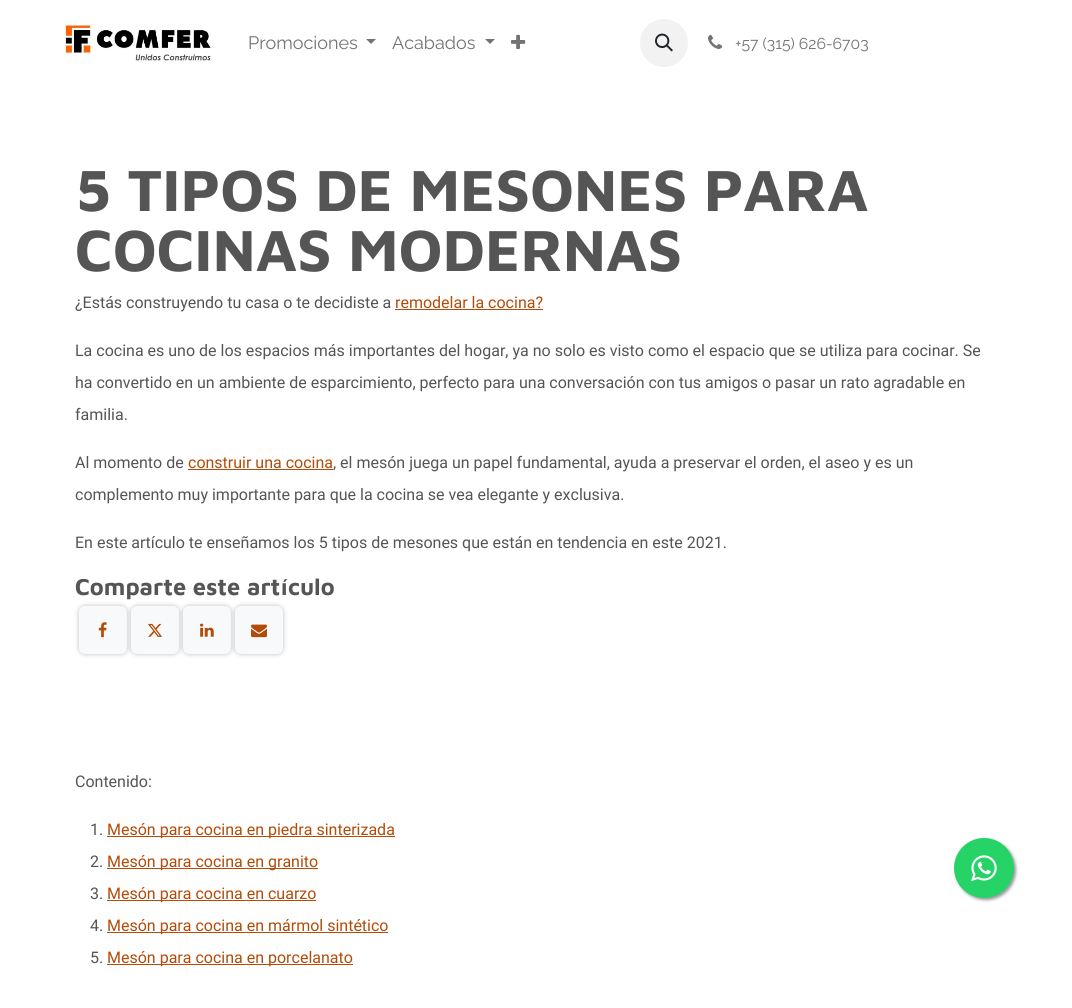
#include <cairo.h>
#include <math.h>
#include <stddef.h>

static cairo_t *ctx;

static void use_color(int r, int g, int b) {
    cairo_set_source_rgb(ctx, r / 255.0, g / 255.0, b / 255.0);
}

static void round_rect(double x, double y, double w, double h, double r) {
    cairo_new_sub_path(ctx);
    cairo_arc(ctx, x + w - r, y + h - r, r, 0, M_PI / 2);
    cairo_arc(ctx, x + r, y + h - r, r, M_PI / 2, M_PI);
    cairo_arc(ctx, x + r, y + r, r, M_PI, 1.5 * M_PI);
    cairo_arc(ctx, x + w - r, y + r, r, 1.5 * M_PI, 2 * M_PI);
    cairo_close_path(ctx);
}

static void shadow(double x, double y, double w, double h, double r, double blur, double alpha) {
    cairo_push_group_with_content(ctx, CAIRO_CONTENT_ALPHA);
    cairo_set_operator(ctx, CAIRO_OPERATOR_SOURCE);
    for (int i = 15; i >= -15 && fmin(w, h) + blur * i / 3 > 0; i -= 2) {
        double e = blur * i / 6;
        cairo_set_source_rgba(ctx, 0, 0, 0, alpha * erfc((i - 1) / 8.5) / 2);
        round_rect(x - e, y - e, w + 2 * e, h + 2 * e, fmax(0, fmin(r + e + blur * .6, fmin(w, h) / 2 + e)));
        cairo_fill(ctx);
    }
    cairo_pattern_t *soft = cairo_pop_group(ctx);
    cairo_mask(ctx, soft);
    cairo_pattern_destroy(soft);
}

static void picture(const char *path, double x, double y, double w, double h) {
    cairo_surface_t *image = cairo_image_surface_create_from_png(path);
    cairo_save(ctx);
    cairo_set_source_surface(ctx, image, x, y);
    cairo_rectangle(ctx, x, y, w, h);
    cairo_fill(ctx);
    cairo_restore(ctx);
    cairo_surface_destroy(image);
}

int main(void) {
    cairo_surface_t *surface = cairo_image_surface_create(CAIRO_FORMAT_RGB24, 1072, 1008);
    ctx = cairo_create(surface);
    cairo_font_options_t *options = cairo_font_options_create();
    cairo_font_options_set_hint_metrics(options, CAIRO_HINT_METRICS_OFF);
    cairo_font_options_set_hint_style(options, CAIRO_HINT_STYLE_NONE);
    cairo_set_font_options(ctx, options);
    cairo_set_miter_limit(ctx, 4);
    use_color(255, 255, 255);
    cairo_paint(ctx);
    picture("img1.png", 64, 24, 148, 38);
    cairo_select_font_face(ctx, "Raleway", CAIRO_FONT_SLANT_NORMAL, CAIRO_FONT_WEIGHT_NORMAL);
    cairo_set_font_size(ctx, 18);
    use_color(115, 115, 115);
    cairo_move_to(ctx, 248, 49);
    cairo_show_text(ctx, "Promociones");
    cairo_new_path(ctx);
    cairo_move_to(ctx, 366, 39);
    cairo_line_to(ctx, 376, 39);
    cairo_line_to(ctx, 371, 44);
    cairo_close_path(ctx);
    cairo_fill(ctx);
    cairo_move_to(ctx, 392, 49);
    cairo_show_text(ctx, "Acabados");
    cairo_new_path(ctx);
    cairo_move_to(ctx, 485, 39);
    cairo_line_to(ctx, 495, 39);
    cairo_line_to(ctx, 490, 44);
    cairo_close_path(ctx);
    cairo_fill(ctx);
    picture("img2.png", 511, 34, 15, 15);
    use_color(242, 242, 242);
    cairo_arc(ctx, 664, 43, 24, 0, 2 * M_PI);
    cairo_fill(ctx);
    picture("img3.png", 655, 33, 18, 19);
    picture("img4.png", 708, 34, 15, 15);
    cairo_set_font_size(ctx, 15.75);
    use_color(115, 115, 115);
    cairo_move_to(ctx, 735, 49);
    cairo_show_text(ctx, "+57 (315) 626-6703");
    cairo_select_font_face(ctx, "Maven Pro", CAIRO_FONT_SLANT_NORMAL, CAIRO_FONT_WEIGHT_BOLD);
    cairo_set_font_size(ctx, 59.75);
    use_color(85, 85, 85);
    cairo_move_to(ctx, 75, 211);
    cairo_show_text(ctx, "5 TIPOS DE MESONES PARA");
    cairo_move_to(ctx, 75, 271);
    cairo_show_text(ctx, "COCINAS MODERNAS");
    cairo_select_font_face(ctx, "Roboto", CAIRO_FONT_SLANT_NORMAL, CAIRO_FONT_WEIGHT_NORMAL);
    cairo_set_font_size(ctx, 16);
    cairo_move_to(ctx, 75, 308);
    cairo_show_text(ctx, "¿Estás construyendo tu casa o te decidiste a");
    use_color(179, 76, 8);
    cairo_move_to(ctx, 395, 308);
    cairo_show_text(ctx, "remodelar la cocina?");
    cairo_rectangle(ctx, 395, 309, 148, 1);
    cairo_fill(ctx);
    use_color(85, 85, 85);
    cairo_move_to(ctx, 75, 356);
    cairo_show_text(ctx, "La cocina es uno de los espacios más importantes del hogar, ya no solo es visto como el espacio que se utiliza para cocinar. Se");
    cairo_move_to(ctx, 75, 388);
    cairo_show_text(ctx, "ha convertido en un ambiente de esparcimiento, perfecto para una conversación con tus amigos o pasar un rato agradable en");
    cairo_move_to(ctx, 75, 420);
    cairo_show_text(ctx, "familia.");
    cairo_move_to(ctx, 75, 468);
    cairo_show_text(ctx, "Al momento de");
    use_color(179, 76, 8);
    cairo_move_to(ctx, 188, 468);
    cairo_show_text(ctx, "construir una cocina");
    cairo_rectangle(ctx, 188, 469, 145, 1);
    cairo_fill(ctx);
    use_color(85, 85, 85);
    cairo_move_to(ctx, 333, 468);
    cairo_show_text(ctx, ", el mesón juega un papel fundamental, ayuda a preservar el orden, el aseo y es un");
    cairo_move_to(ctx, 75, 500);
    cairo_show_text(ctx, "complemento muy importante para que la cocina se vea elegante y exclusiva.");
    cairo_move_to(ctx, 75, 548);
    cairo_show_text(ctx, "En este artículo te enseñamos los 5 tipos de mesones que están en tendencia en este 2021.");
    cairo_select_font_face(ctx, "Maven Pro", CAIRO_FONT_SLANT_NORMAL, CAIRO_FONT_WEIGHT_BOLD);
    cairo_set_font_size(ctx, 23.6);
    cairo_move_to(ctx, 75, 595);
    cairo_show_text(ctx, "Comparte este artículo");
    use_color(0, 0, 0);
    shadow(79, 606, 48, 48, 6, 2.5, 0.25);
    use_color(248, 249, 250);
    round_rect(79, 606, 48, 48, 6);
    cairo_fill(ctx);
    picture("img5.png", 98, 622, 9, 16);
    use_color(0, 0, 0);
    shadow(131, 606, 48, 48, 6, 2.5, 0.25);
    use_color(248, 249, 250);
    round_rect(131, 606, 48, 48, 6);
    cairo_fill(ctx);
    picture("img6.png", 148, 623, 14, 14);
    use_color(0, 0, 0);
    shadow(183, 606, 48, 48, 6, 2.5, 0.25);
    use_color(248, 249, 250);
    round_rect(183, 606, 48, 48, 6);
    cairo_fill(ctx);
    picture("img7.png", 200, 623, 14, 14);
    use_color(0, 0, 0);
    shadow(235, 606, 48, 48, 6, 2.5, 0.25);
    use_color(248, 249, 250);
    round_rect(235, 606, 48, 48, 6);
    cairo_fill(ctx);
    picture("img8.png", 251, 624, 16, 14);
    cairo_select_font_face(ctx, "Roboto", CAIRO_FONT_SLANT_NORMAL, CAIRO_FONT_WEIGHT_NORMAL);
    cairo_set_font_size(ctx, 16);
    use_color(85, 85, 85);
    cairo_move_to(ctx, 75, 787);
    cairo_show_text(ctx, "Contenido:");
    cairo_move_to(ctx, 90, 835);
    cairo_show_text(ctx, "1.");
    use_color(179, 76, 8);
    cairo_rectangle(ctx, 107, 836, 288, 1);
    cairo_fill(ctx);
    cairo_move_to(ctx, 107, 835);
    cairo_show_text(ctx, "Mesón para cocina en piedra sinterizada");
    use_color(85, 85, 85);
    cairo_move_to(ctx, 90, 867);
    cairo_show_text(ctx, "2.");
    use_color(179, 76, 8);
    cairo_rectangle(ctx, 107, 868, 211, 1);
    cairo_fill(ctx);
    cairo_move_to(ctx, 107, 867);
    cairo_show_text(ctx, "Mesón para cocina en granito");
    use_color(85, 85, 85);
    cairo_move_to(ctx, 90, 899);
    cairo_show_text(ctx, "3.");
    use_color(179, 76, 8);
    cairo_rectangle(ctx, 107, 900, 209, 1);
    cairo_fill(ctx);
    cairo_move_to(ctx, 107, 899);
    cairo_show_text(ctx, "Mesón para cocina en cuarzo");
    use_color(85, 85, 85);
    cairo_move_to(ctx, 90, 931);
    cairo_show_text(ctx, "4.");
    use_color(179, 76, 8);
    cairo_rectangle(ctx, 107, 932, 281, 1);
    cairo_fill(ctx);
    cairo_move_to(ctx, 107, 931);
    cairo_show_text(ctx, "Mesón para cocina en mármol sintético");
    use_color(85, 85, 85);
    cairo_move_to(ctx, 90, 963);
    cairo_show_text(ctx, "5.");
    use_color(179, 76, 8);
    cairo_rectangle(ctx, 107, 964, 246, 1);
    cairo_fill(ctx);
    cairo_move_to(ctx, 107, 963);
    cairo_show_text(ctx, "Mesón para cocina en porcelanato");
    use_color(153, 153, 153);
    shadow(956, 840, 60, 60, 30, 1.5, 1);
    use_color(37, 211, 102);
    cairo_arc(ctx, 984, 868, 30, 0, 2 * M_PI);
    cairo_fill(ctx);
    picture("img9.png", 971, 855, 26, 27);
    cairo_surface_write_to_png(surface, "result.png");
    cairo_font_options_destroy(options);
    cairo_destroy(ctx);
    cairo_surface_destroy(surface);
    return 0;
}
